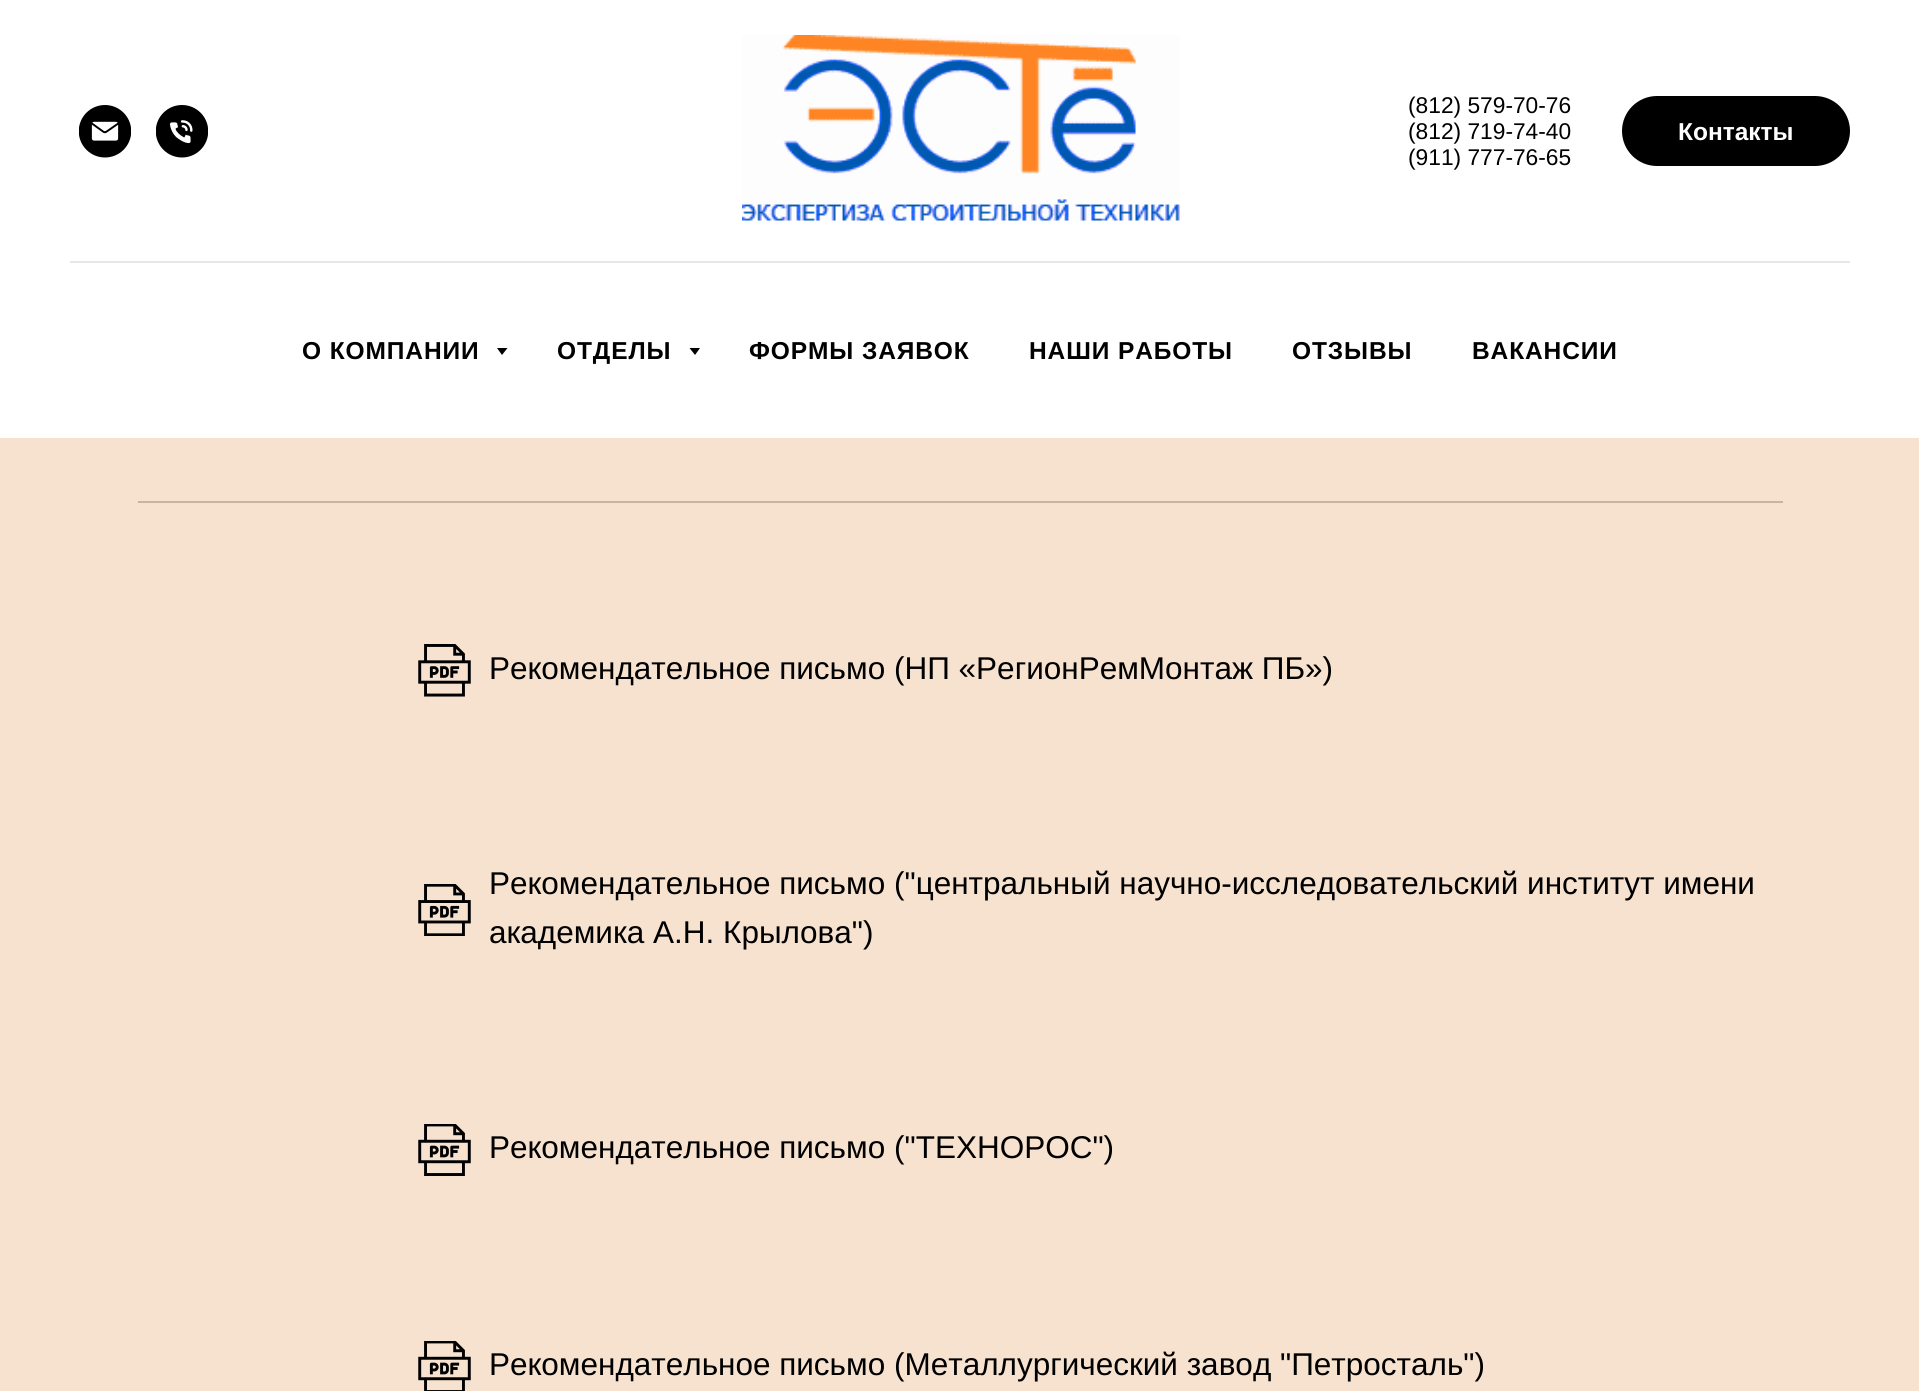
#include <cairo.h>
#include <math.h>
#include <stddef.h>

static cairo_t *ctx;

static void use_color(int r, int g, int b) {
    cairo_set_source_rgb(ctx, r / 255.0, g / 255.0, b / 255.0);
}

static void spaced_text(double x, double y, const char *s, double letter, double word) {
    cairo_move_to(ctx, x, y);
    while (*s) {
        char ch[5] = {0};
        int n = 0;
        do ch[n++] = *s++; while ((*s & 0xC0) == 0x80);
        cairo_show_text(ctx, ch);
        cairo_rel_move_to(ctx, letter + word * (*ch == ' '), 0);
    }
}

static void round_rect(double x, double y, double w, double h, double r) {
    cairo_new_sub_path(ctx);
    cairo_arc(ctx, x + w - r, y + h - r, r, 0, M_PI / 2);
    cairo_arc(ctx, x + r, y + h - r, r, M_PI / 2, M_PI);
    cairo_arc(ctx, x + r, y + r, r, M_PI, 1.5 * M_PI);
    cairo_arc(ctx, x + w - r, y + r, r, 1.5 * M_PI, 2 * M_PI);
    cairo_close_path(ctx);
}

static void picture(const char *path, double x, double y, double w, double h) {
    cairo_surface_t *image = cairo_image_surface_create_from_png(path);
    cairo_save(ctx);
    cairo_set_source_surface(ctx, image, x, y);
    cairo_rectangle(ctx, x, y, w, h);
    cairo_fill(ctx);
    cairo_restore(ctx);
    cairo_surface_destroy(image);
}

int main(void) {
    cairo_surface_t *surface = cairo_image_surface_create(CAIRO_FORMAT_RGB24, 1919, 1391);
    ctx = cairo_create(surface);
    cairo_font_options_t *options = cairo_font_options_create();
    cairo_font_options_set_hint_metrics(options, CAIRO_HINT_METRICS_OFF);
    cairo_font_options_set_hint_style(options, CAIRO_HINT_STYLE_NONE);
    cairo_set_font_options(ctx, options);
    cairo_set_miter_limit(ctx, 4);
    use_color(246, 226, 206);
    cairo_paint(ctx);
    use_color(255, 255, 255);
    cairo_rectangle(ctx, 0, 0, 1919, 438);
    cairo_fill(ctx);
    picture("img1.png", 742, 35, 438, 186);
    picture("img2.png", 79, 105, 52, 53);
    picture("img3.png", 156, 105, 52, 53);
    cairo_select_font_face(ctx, "Liberation Sans", CAIRO_FONT_SLANT_NORMAL, CAIRO_FONT_WEIGHT_NORMAL);
    cairo_set_font_size(ctx, 22.75);
    use_color(0, 0, 0);
    cairo_move_to(ctx, 1408, 113);
    cairo_show_text(ctx, "(812) 579-70-76");
    cairo_move_to(ctx, 1408, 139);
    cairo_show_text(ctx, "(812) 719-74-40");
    cairo_move_to(ctx, 1408, 165);
    cairo_show_text(ctx, "(911) 777-76-65");
    round_rect(1622, 96, 228, 70, 35);
    cairo_fill(ctx);
    cairo_select_font_face(ctx, "Liberation Sans", CAIRO_FONT_SLANT_NORMAL, CAIRO_FONT_WEIGHT_BOLD);
    cairo_set_font_size(ctx, 24.5);
    use_color(255, 255, 255);
    cairo_move_to(ctx, 1678, 140);
    cairo_show_text(ctx, "Контакты");
    use_color(230, 230, 230);
    cairo_rectangle(ctx, 70, 261, 1780, 2);
    cairo_fill(ctx);
    use_color(0, 0, 0);
    spaced_text(302, 359, "О КОМПАНИИ", 0.9, 0);
    cairo_new_path(ctx);
    cairo_move_to(ctx, 497, 348);
    cairo_line_to(ctx, 507.5, 348);
    cairo_line_to(ctx, 502, 355);
    cairo_close_path(ctx);
    cairo_fill(ctx);
    spaced_text(557, 359, "ОТДЕЛЫ", 0.9, 0);
    cairo_new_path(ctx);
    cairo_move_to(ctx, 689.5, 348);
    cairo_line_to(ctx, 700, 348);
    cairo_line_to(ctx, 695, 355);
    cairo_close_path(ctx);
    cairo_fill(ctx);
    spaced_text(749, 359, "ФОРМЫ ЗАЯВОК", 0.9, 0);
    spaced_text(1029, 359, "НАШИ РАБОТЫ", 0.9, 0);
    spaced_text(1292, 359, "ОТЗЫВЫ", 0.9, 0);
    spaced_text(1472, 359, "ВАКАНСИИ", 0.9, 0);
    use_color(197, 181, 165);
    cairo_rectangle(ctx, 138, 501, 1645, 2);
    cairo_fill(ctx);
    picture("img4.png", 418, 644, 53, 53);
    cairo_select_font_face(ctx, "Liberation Sans", CAIRO_FONT_SLANT_NORMAL, CAIRO_FONT_WEIGHT_NORMAL);
    cairo_set_font_size(ctx, 31.5);
    use_color(0, 0, 0);
    cairo_move_to(ctx, 489, 679);
    cairo_show_text(ctx, "Рекомендательное письмо (НП «РегионРемМонтаж ПБ»)");
    picture("img5.png", 418, 884, 53, 52);
    cairo_move_to(ctx, 489, 894);
    cairo_show_text(ctx, "Рекомендательное письмо (\"центральный научно-исследовательский институт имени");
    cairo_move_to(ctx, 489, 943);
    cairo_show_text(ctx, "академика А.Н. Крылова\")");
    picture("img6.png", 418, 1124, 53, 52);
    cairo_move_to(ctx, 489, 1158);
    cairo_show_text(ctx, "Рекомендательное письмо (\"ТЕХНОРОС\")");
    picture("img7.png", 418, 1341, 53, 50);
    cairo_move_to(ctx, 489, 1375);
    cairo_show_text(ctx, "Рекомендательное письмо (Металлургический завод \"Петросталь\")");
    cairo_surface_write_to_png(surface, "result.png");
    cairo_font_options_destroy(options);
    cairo_destroy(ctx);
    cairo_surface_destroy(surface);
    return 0;
}
